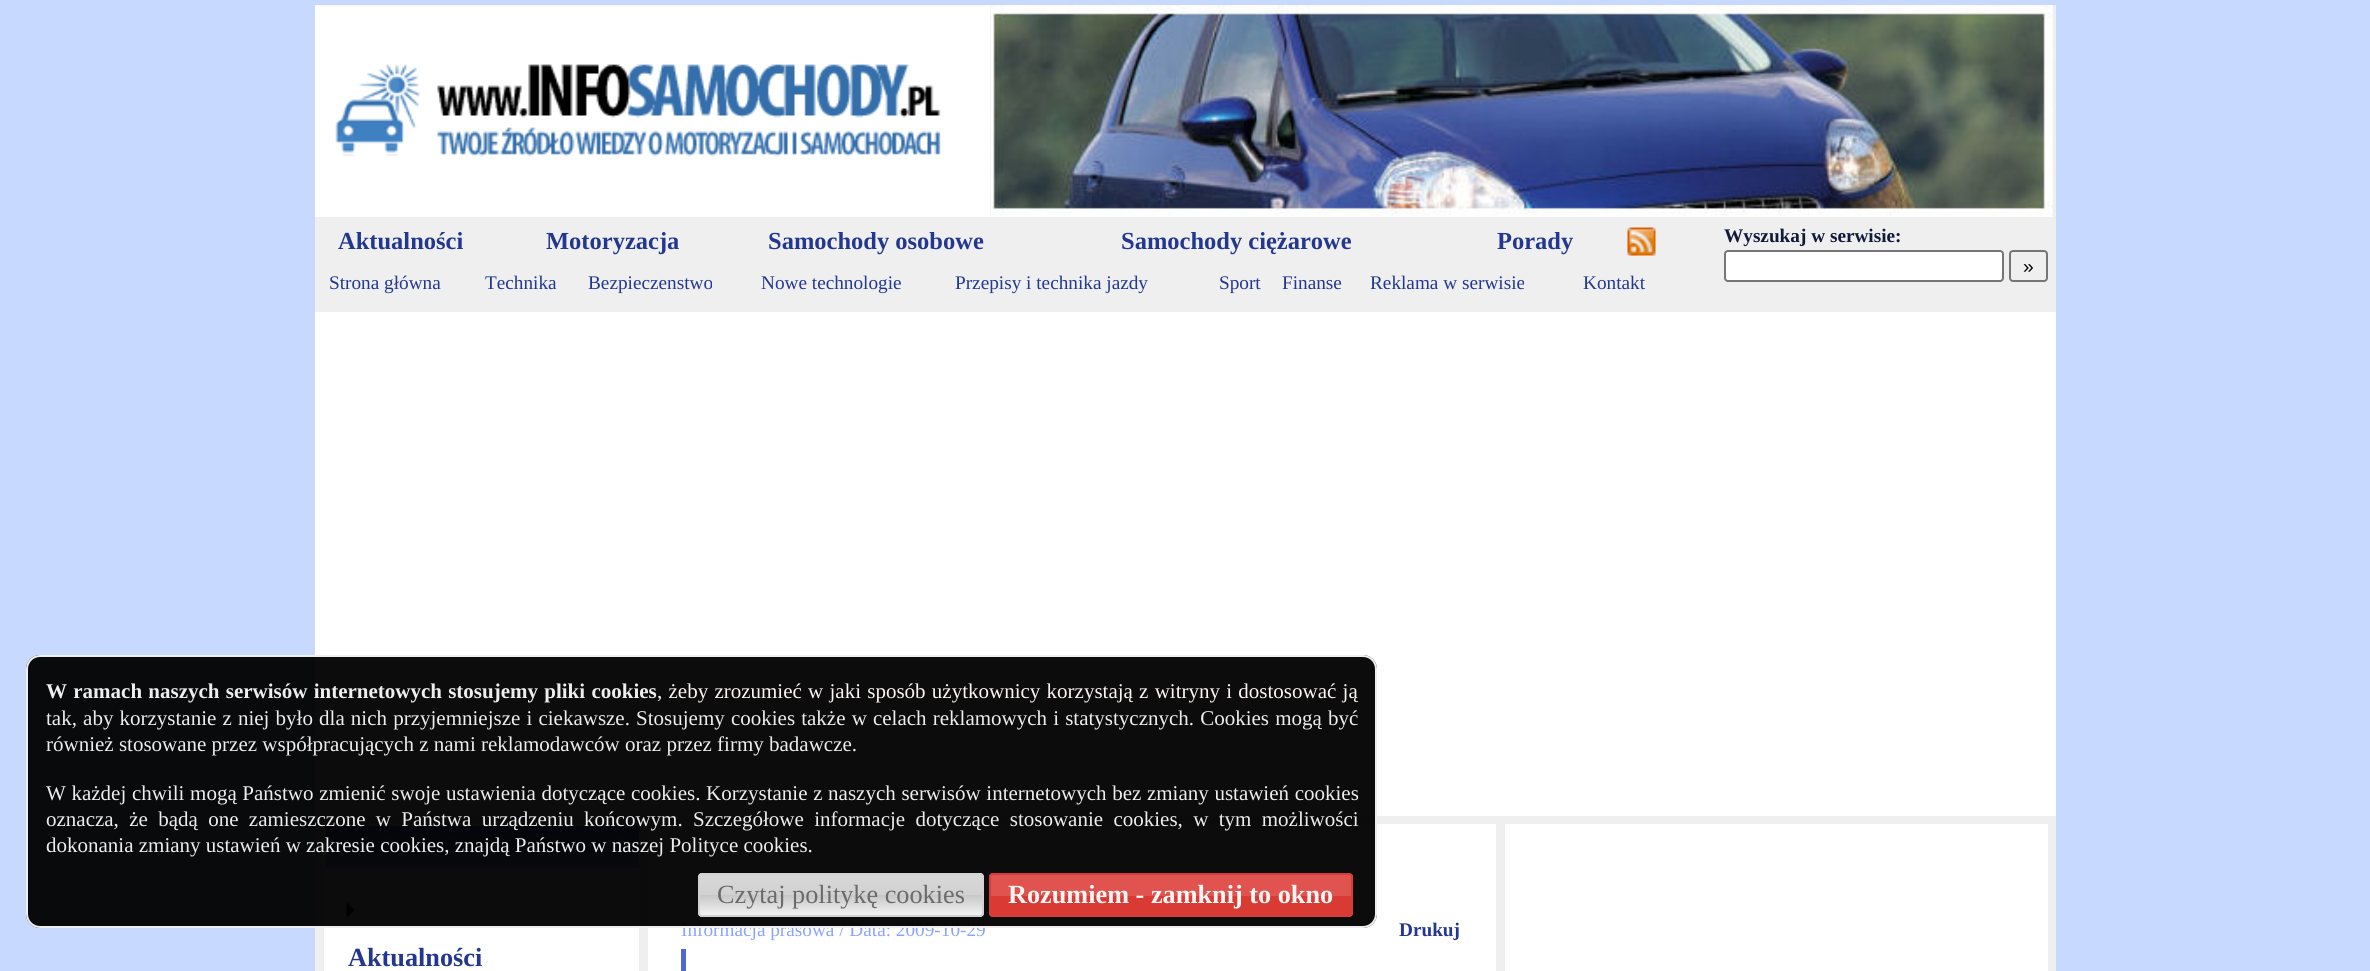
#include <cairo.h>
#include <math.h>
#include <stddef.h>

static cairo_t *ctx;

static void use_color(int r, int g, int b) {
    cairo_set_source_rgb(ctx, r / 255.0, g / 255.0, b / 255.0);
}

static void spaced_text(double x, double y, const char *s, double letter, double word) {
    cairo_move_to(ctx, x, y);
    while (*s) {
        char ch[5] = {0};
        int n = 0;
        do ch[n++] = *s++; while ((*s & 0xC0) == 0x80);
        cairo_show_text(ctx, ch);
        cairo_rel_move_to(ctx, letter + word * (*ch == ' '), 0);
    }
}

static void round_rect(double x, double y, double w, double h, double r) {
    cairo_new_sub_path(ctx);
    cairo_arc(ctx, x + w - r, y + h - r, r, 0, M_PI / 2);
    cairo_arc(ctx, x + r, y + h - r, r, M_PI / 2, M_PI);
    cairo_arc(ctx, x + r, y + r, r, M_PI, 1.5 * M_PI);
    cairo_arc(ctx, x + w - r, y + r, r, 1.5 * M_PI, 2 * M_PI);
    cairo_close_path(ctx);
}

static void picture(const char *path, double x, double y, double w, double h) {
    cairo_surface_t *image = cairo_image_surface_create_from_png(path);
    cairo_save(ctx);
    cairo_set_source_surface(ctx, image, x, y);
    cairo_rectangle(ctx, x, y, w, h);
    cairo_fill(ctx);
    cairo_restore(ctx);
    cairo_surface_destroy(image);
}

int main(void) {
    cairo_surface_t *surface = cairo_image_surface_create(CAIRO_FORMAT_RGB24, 2370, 971);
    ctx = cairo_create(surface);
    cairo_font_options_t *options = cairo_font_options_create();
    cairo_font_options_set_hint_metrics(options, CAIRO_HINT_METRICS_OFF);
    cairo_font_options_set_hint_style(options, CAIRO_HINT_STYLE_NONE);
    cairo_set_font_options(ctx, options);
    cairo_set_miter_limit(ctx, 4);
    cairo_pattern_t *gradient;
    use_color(199, 217, 255);
    cairo_paint(ctx);
    use_color(239, 239, 239);
    cairo_rectangle(ctx, 315, 5, 1741, 966);
    cairo_fill(ctx);
    picture("img1.png", 315, 5, 676, 212);
    picture("img2.png", 991, 5, 1062, 212);
    cairo_select_font_face(ctx, "Liberation Serif", CAIRO_FONT_SLANT_NORMAL, CAIRO_FONT_WEIGHT_BOLD);
    cairo_set_font_size(ctx, 24.5);
    use_color(35, 55, 144);
    cairo_move_to(ctx, 338, 249);
    cairo_show_text(ctx, "Aktualności");
    cairo_move_to(ctx, 546, 249);
    cairo_show_text(ctx, "Motoryzacja");
    cairo_move_to(ctx, 768, 249);
    cairo_show_text(ctx, "Samochody osobowe");
    cairo_move_to(ctx, 1121, 249);
    cairo_show_text(ctx, "Samochody ciężarowe");
    cairo_move_to(ctx, 1497, 249);
    cairo_show_text(ctx, "Porady");
    picture("img3.png", 1627, 227, 29, 29);
    cairo_set_font_size(ctx, 19.25);
    use_color(18, 26, 58);
    cairo_move_to(ctx, 1724, 242);
    cairo_show_text(ctx, "Wyszukaj w serwisie:");
    use_color(255, 255, 255);
    round_rect(1725, 251, 278, 30, 3);
    cairo_fill_preserve(ctx);
    use_color(118, 118, 118);
    cairo_stroke(ctx);
    round_rect(2010, 251, 37, 30, 3);
    cairo_stroke(ctx);
    cairo_select_font_face(ctx, "Liberation Sans", CAIRO_FONT_SLANT_NORMAL, CAIRO_FONT_WEIGHT_NORMAL);
    use_color(0, 0, 0);
    cairo_move_to(ctx, 2023, 273);
    cairo_show_text(ctx, "»");
    cairo_select_font_face(ctx, "Liberation Serif", CAIRO_FONT_SLANT_NORMAL, CAIRO_FONT_WEIGHT_NORMAL);
    use_color(35, 55, 144);
    cairo_move_to(ctx, 329, 289);
    cairo_show_text(ctx, "Strona główna");
    cairo_move_to(ctx, 485, 289);
    cairo_show_text(ctx, "Technika");
    cairo_move_to(ctx, 588, 289);
    cairo_show_text(ctx, "Bezpieczenstwo");
    cairo_move_to(ctx, 761, 289);
    cairo_show_text(ctx, "Nowe technologie");
    cairo_move_to(ctx, 955, 289);
    cairo_show_text(ctx, "Przepisy i technika jazdy");
    cairo_move_to(ctx, 1219, 289);
    cairo_show_text(ctx, "Sport");
    cairo_move_to(ctx, 1282, 289);
    cairo_show_text(ctx, "Finanse");
    cairo_move_to(ctx, 1370, 289);
    cairo_show_text(ctx, "Reklama w serwisie");
    cairo_move_to(ctx, 1583, 289);
    cairo_show_text(ctx, "Kontakt");
    use_color(255, 255, 255);
    cairo_rectangle(ctx, 315, 312, 1741, 504);
    cairo_fill(ctx);
    cairo_rectangle(ctx, 648, 824, 848, 147);
    cairo_fill(ctx);
    use_color(138, 163, 255);
    cairo_move_to(ctx, 681, 936);
    cairo_show_text(ctx, "Informacja prasowa / Data: 2009-10-29");
    cairo_select_font_face(ctx, "Liberation Serif", CAIRO_FONT_SLANT_NORMAL, CAIRO_FONT_WEIGHT_BOLD);
    use_color(35, 55, 144);
    cairo_move_to(ctx, 1399, 936);
    cairo_show_text(ctx, "Drukuj");
    use_color(79, 104, 211);
    cairo_rectangle(ctx, 681, 949, 5, 22);
    cairo_fill(ctx);
    use_color(255, 255, 255);
    cairo_rectangle(ctx, 1505, 824, 543, 147);
    cairo_fill(ctx);
    picture("img4.png", 323, 824, 316, 44);
    cairo_rectangle(ctx, 324, 868, 315, 103);
    cairo_fill(ctx);
    picture("img5.png", 346, 902, 8, 15);
    cairo_set_font_size(ctx, 26.25);
    use_color(35, 55, 144);
    cairo_move_to(ctx, 348, 966);
    cairo_show_text(ctx, "Aktualności");
    cairo_set_source_rgba(ctx, 0, 0, 0, 0.95);
    round_rect(26, 655, 1351, 273, 14);
    cairo_fill(ctx);
    round_rect(27, 656, 1349, 271, 13);
    cairo_set_source_rgba(ctx, 0.98, 0.98, 0.98, 0.95);
    cairo_stroke(ctx);
    cairo_set_font_size(ctx, 21);
    use_color(238, 238, 238);
    spaced_text(46, 698, "W ramach naszych serwisów internetowych stosujemy pliki cookies", 0, 1);
    cairo_select_font_face(ctx, "Liberation Serif", CAIRO_FONT_SLANT_NORMAL, CAIRO_FONT_WEIGHT_NORMAL);
    use_color(253, 246, 245);
    spaced_text(657, 698, ", żeby zrozumieć w jaki sposób użytkownicy korzystają z witryny i dostosować ją", 0, 1);
    use_color(238, 238, 238);
    spaced_text(46, 725, "tak, aby korzystanie z niej było dla nich przyjemniejsze i ciekawsze. Stosujemy cookies także w celach reklamowych i statystycznych. Cookies mogą być", 0, 0.9);
    cairo_move_to(ctx, 46, 751);
    cairo_show_text(ctx, "również stosowane przez współpracujących z nami reklamodawców oraz przez firmy badawcze.");
    spaced_text(46, 800, "W każdej chwili mogą Państwo zmienić swoje ustawienia dotyczące cookies. Korzystanie z naszych serwisów internetowych bez zmiany ustawień cookies", 0, 0.4);
    spaced_text(46, 826, "oznacza, że bądą one zamieszczone w Państwa urządzeniu końcowym. Szczegółowe informacje dotyczące stosowanie cookies, w tym możliwości", 0, 5.1);
    cairo_move_to(ctx, 46, 852);
    cairo_show_text(ctx, "dokonania zmiany ustawień w zakresie cookies, znajdą Państwo w naszej Polityce cookies.");
    cairo_save(ctx);
    round_rect(698, 873, 286, 44, 4);
    cairo_clip(ctx);
    gradient = cairo_pattern_create_linear(841, 835, 841, 875);
    cairo_pattern_add_color_stop_rgba(gradient, 0, 0.89, 0.89, 0.89, 1);
    cairo_pattern_add_color_stop_rgba(gradient, 0.5, 0.867, 0.867, 0.867, 1);
    cairo_pattern_add_color_stop_rgba(gradient, 0.51, 0.827, 0.827, 0.827, 1);
    cairo_pattern_add_color_stop_rgba(gradient, 1, 0.996, 0.996, 0.996, 1);
    cairo_set_source(ctx, gradient);
    cairo_pattern_destroy(gradient);
    cairo_rectangle(ctx, 698, 873, 286, 2);
    cairo_fill(ctx);
    gradient = cairo_pattern_create_linear(841, 875, 841, 915);
    cairo_pattern_add_color_stop_rgba(gradient, 0, 0.886, 0.886, 0.886, 0.95);
    cairo_pattern_add_color_stop_rgba(gradient, 0.5, 0.859, 0.859, 0.859, 0.95);
    cairo_pattern_add_color_stop_rgba(gradient, 0.51, 0.82, 0.82, 0.82, 0.95);
    cairo_pattern_add_color_stop_rgba(gradient, 1, 0.996, 0.996, 0.996, 0.95);
    cairo_set_source(ctx, gradient);
    cairo_pattern_destroy(gradient);
    cairo_rectangle(ctx, 698, 875, 286, 40);
    cairo_fill(ctx);
    gradient = cairo_pattern_create_linear(841, 915, 841, 956);
    cairo_pattern_add_color_stop_rgba(gradient, 0, 0.89, 0.89, 0.89, 1);
    cairo_pattern_add_color_stop_rgba(gradient, 0.5, 0.867, 0.867, 0.867, 1);
    cairo_pattern_add_color_stop_rgba(gradient, 0.51, 0.827, 0.827, 0.827, 1);
    cairo_pattern_add_color_stop_rgba(gradient, 1, 0.996, 0.996, 0.996, 1);
    cairo_set_source(ctx, gradient);
    cairo_pattern_destroy(gradient);
    cairo_rectangle(ctx, 698, 915, 286, 2);
    cairo_fill(ctx);
    cairo_restore(ctx);
    round_rect(699, 874, 284, 42, 3);
    cairo_set_source_rgba(ctx, 0.82, 0.82, 0.82, 0.95);
    cairo_stroke(ctx);
    cairo_set_font_size(ctx, 26.25);
    use_color(107, 107, 107);
    cairo_move_to(ctx, 717, 903);
    cairo_show_text(ctx, "Czytaj politykę cookies");
    cairo_save(ctx);
    round_rect(989, 873, 364, 44, 4);
    cairo_clip(ctx);
    use_color(228, 70, 63);
    cairo_rectangle(ctx, 989, 873, 364, 2);
    cairo_fill(ctx);
    cairo_restore(ctx);
    cairo_set_source_rgba(ctx, 0.925, 0.341, 0.322, 0.95);
    cairo_rectangle(ctx, 989, 875, 364, 21);
    cairo_fill(ctx);
    cairo_set_source_rgba(ctx, 0.89, 0.235, 0.208, 0.95);
    cairo_rectangle(ctx, 989, 896, 364, 19);
    cairo_fill(ctx);
    cairo_save(ctx);
    round_rect(989, 873, 364, 44, 4);
    cairo_clip(ctx);
    use_color(237, 95, 91);
    cairo_rectangle(ctx, 989, 915, 364, 2);
    cairo_fill(ctx);
    cairo_restore(ctx);
    round_rect(990, 874, 362, 42, 3);
    cairo_set_source_rgba(ctx, 0.839, 0.235, 0.216, 0.95);
    cairo_stroke(ctx);
    cairo_select_font_face(ctx, "Liberation Serif", CAIRO_FONT_SLANT_NORMAL, CAIRO_FONT_WEIGHT_BOLD);
    use_color(253, 246, 245);
    cairo_move_to(ctx, 1008, 903);
    cairo_show_text(ctx, "Rozumiem - zamknij to okno");
    cairo_surface_write_to_png(surface, "result.png");
    cairo_font_options_destroy(options);
    cairo_destroy(ctx);
    cairo_surface_destroy(surface);
    return 0;
}
